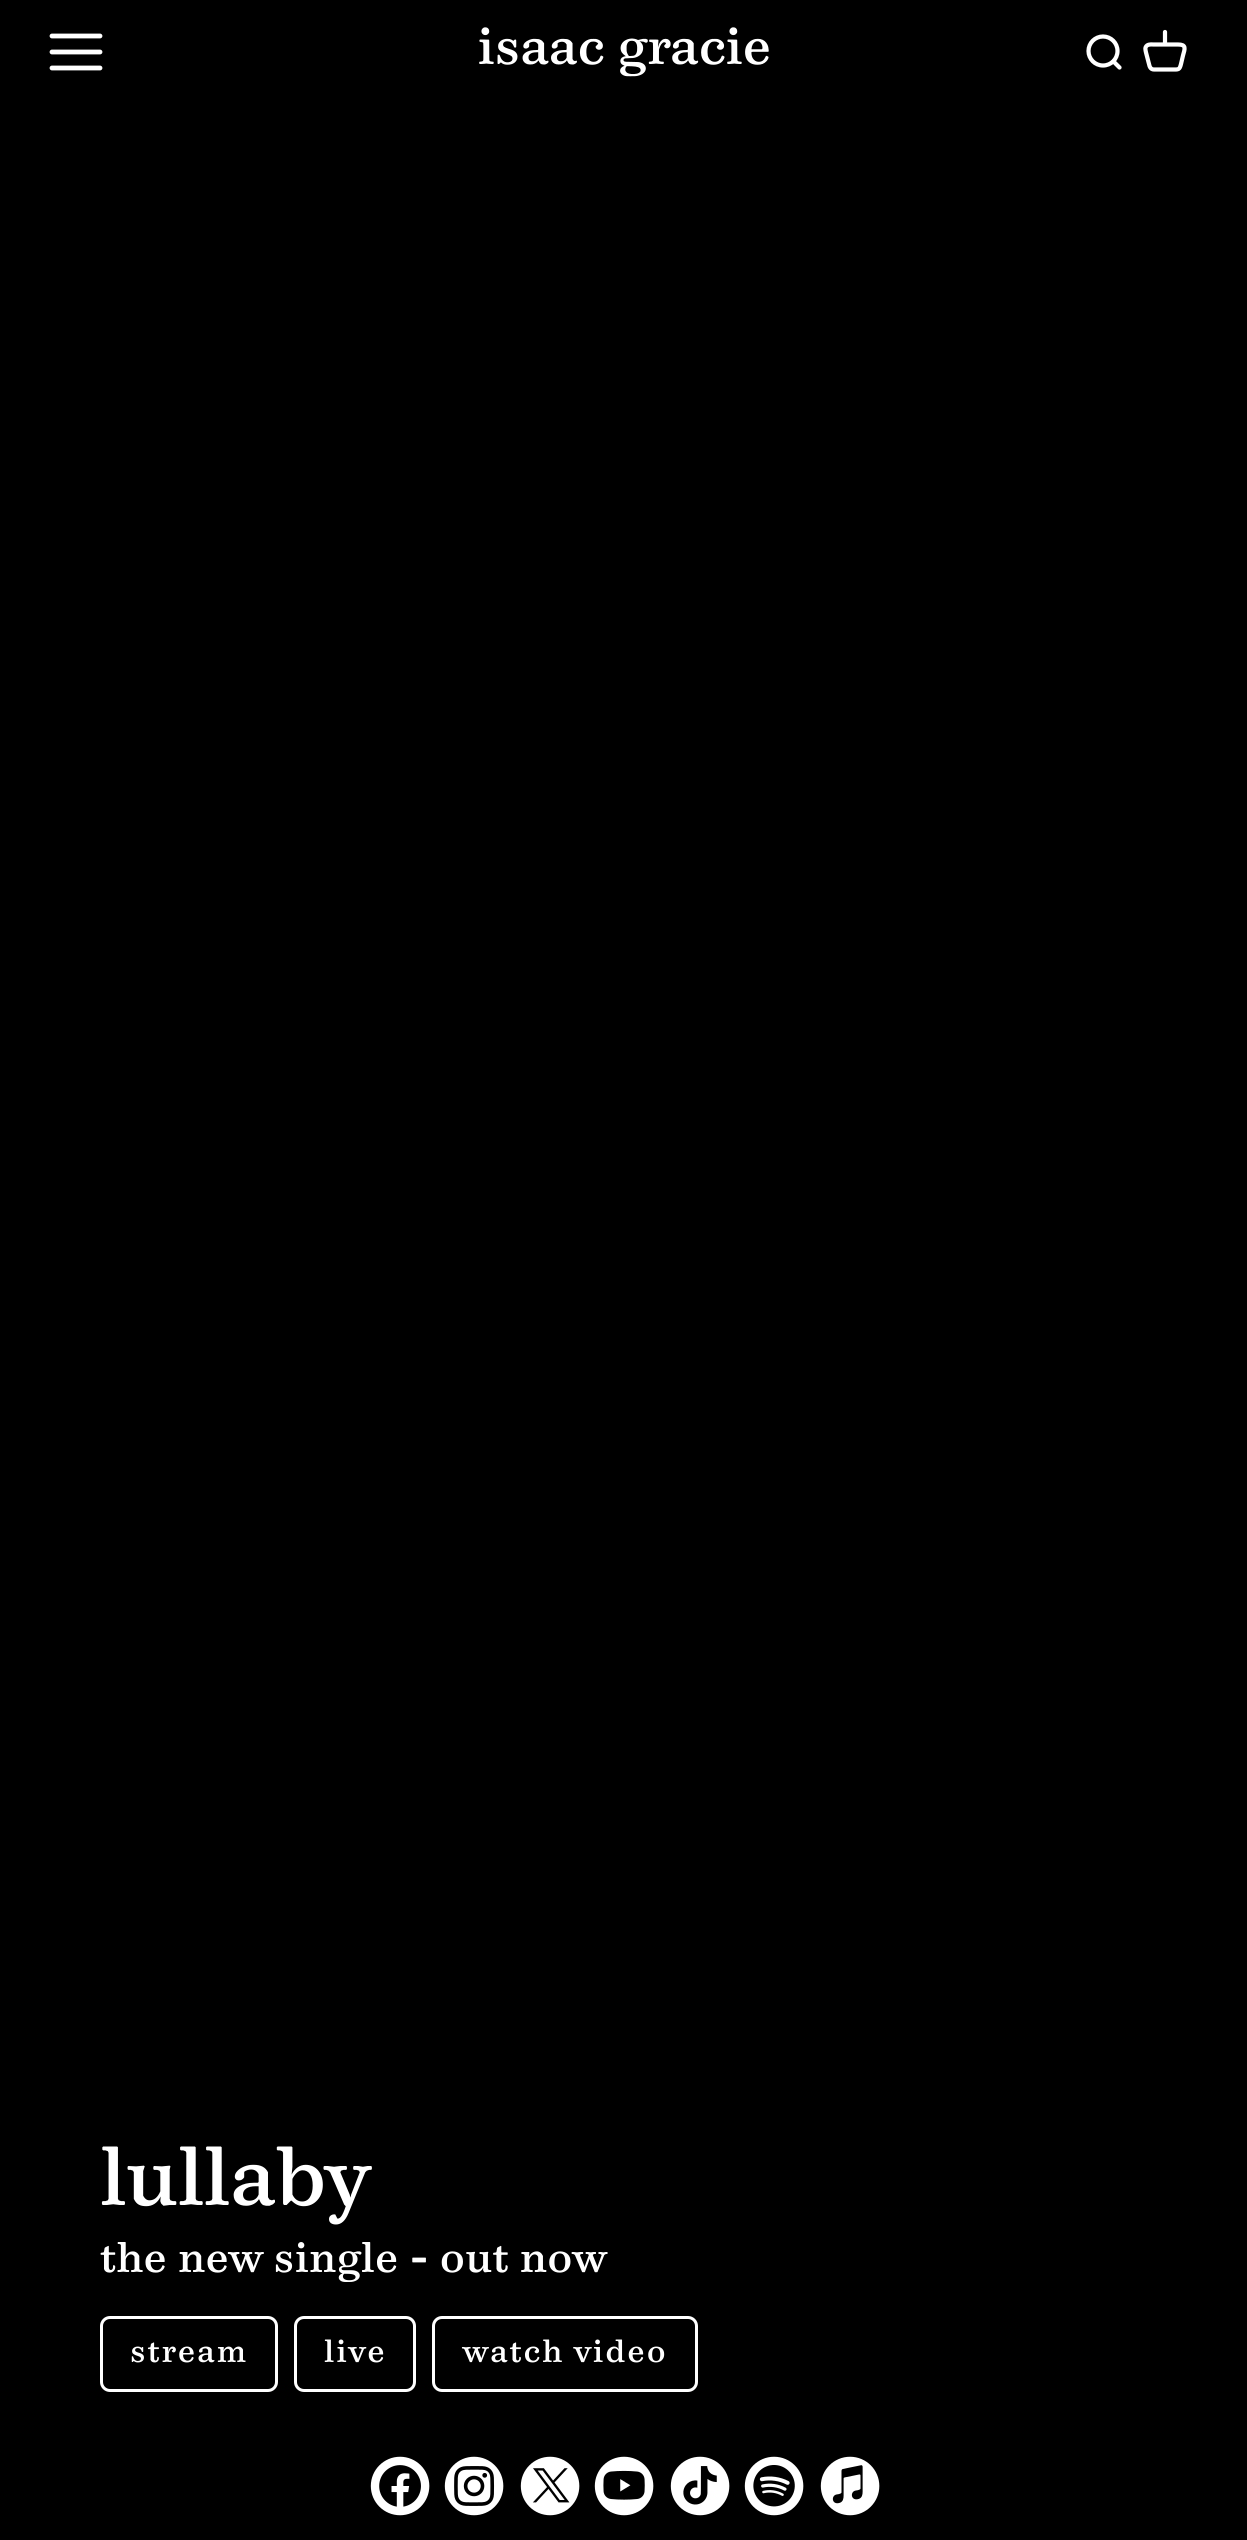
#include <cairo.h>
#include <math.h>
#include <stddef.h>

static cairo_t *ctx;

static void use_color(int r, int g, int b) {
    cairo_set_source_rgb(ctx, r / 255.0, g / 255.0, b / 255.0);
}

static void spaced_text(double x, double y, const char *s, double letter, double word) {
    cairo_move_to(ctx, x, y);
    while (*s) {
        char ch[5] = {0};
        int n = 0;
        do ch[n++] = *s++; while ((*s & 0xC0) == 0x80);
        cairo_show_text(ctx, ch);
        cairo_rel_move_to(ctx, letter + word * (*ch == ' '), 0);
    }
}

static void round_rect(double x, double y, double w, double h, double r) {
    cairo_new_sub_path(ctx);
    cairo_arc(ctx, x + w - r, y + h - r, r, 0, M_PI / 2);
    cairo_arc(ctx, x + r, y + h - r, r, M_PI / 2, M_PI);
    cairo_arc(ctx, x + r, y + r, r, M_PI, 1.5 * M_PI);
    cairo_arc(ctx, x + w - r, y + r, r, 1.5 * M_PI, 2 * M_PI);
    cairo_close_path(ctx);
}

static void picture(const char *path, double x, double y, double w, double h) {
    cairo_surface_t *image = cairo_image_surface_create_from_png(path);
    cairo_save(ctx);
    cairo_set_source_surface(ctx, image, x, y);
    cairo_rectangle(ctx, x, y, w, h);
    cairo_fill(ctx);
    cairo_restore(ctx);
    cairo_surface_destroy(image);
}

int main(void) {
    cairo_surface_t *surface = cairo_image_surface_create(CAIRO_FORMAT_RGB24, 1247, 2540);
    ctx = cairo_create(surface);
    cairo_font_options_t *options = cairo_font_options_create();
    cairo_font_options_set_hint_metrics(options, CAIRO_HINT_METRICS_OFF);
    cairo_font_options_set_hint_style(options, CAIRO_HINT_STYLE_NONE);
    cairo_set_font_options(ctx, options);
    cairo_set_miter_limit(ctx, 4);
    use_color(0, 0, 0);
    cairo_paint(ctx);
    cairo_new_path(ctx);
    cairo_move_to(ctx, 52, 36);
    cairo_line_to(ctx, 100, 36);
    cairo_move_to(ctx, 52, 52);
    cairo_line_to(ctx, 100, 52);
    cairo_move_to(ctx, 52, 68);
    cairo_line_to(ctx, 100, 68);
    use_color(255, 255, 255);
    cairo_set_line_width(ctx, 4.8);
    cairo_set_line_cap(ctx, CAIRO_LINE_CAP_ROUND);
    cairo_stroke(ctx);
    picture("img1.png", 479, 27, 290, 50);
    cairo_arc(ctx, 1103, 51, 14.5, 0, 2 * M_PI);
    cairo_set_line_width(ctx, 4.2);
    cairo_set_line_cap(ctx, CAIRO_LINE_CAP_BUTT);
    cairo_stroke(ctx);
    cairo_new_path(ctx);
    cairo_move_to(ctx, 1113.5, 61.5);
    cairo_line_to(ctx, 1119.5, 67.5);
    cairo_set_line_cap(ctx, CAIRO_LINE_CAP_ROUND);
    cairo_set_line_join(ctx, CAIRO_LINE_JOIN_ROUND);
    cairo_stroke(ctx);
    cairo_new_path(ctx);
    cairo_move_to(ctx, 1165, 44.5);
    cairo_line_to(ctx, 1154.5, 44.5);
    cairo_curve_to(ctx, 1152.5, 44.5, 1149, 44, 1147, 45.5);
    cairo_curve_to(ctx, 1144.5, 47.5, 1145.5, 50, 1146, 52.5);
    cairo_line_to(ctx, 1149, 64);
    cairo_curve_to(ctx, 1149.5, 66.5, 1150.5, 69.5, 1154, 69.5);
    cairo_line_to(ctx, 1172.5, 69.5);
    cairo_curve_to(ctx, 1178.5, 69.5, 1179.5, 70, 1181, 64);
    cairo_line_to(ctx, 1183, 55.5);
    cairo_curve_to(ctx, 1185, 48.5, 1186.5, 44.5, 1178, 44.5);
    cairo_close_path(ctx);
    cairo_move_to(ctx, 1165, 44.5);
    cairo_line_to(ctx, 1165, 32);
    cairo_stroke(ctx);
    cairo_select_font_face(ctx, "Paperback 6", CAIRO_FONT_SLANT_NORMAL, CAIRO_FONT_WEIGHT_NORMAL);
    cairo_set_font_size(ctx, 78);
    spaced_text(100, 2205, "lullaby", -0.5, 0);
    cairo_set_font_size(ctx, 40);
    spaced_text(100, 2272, "the new single - out now", 0.4, 0);
    round_rect(101.5, 2317.5, 175, 73, 8.5);
    cairo_set_line_width(ctx, 3);
    cairo_set_line_cap(ctx, CAIRO_LINE_CAP_BUTT);
    cairo_set_line_join(ctx, CAIRO_LINE_JOIN_MITER);
    cairo_stroke(ctx);
    cairo_set_font_size(ctx, 30);
    spaced_text(130, 2362, "stream", 2, 0);
    round_rect(295.5, 2317.5, 119, 73, 8.5);
    cairo_stroke(ctx);
    spaced_text(324, 2362, "live", 2, 0);
    round_rect(433.5, 2317.5, 263, 73, 8.5);
    cairo_stroke(ctx);
    spaced_text(463, 2362, "watch video", 2, 0);
    picture("img2.png", 370, 2456, 60, 60);
    picture("img3.png", 444, 2456, 60, 60);
    picture("img4.png", 520, 2456, 60, 60);
    picture("img5.png", 594, 2456, 60, 60);
    picture("img6.png", 670, 2456, 60, 60);
    picture("img7.png", 744, 2456, 60, 60);
    picture("img8.png", 820, 2456, 60, 60);
    cairo_surface_write_to_png(surface, "result.png");
    cairo_font_options_destroy(options);
    cairo_destroy(ctx);
    cairo_surface_destroy(surface);
    return 0;
}
